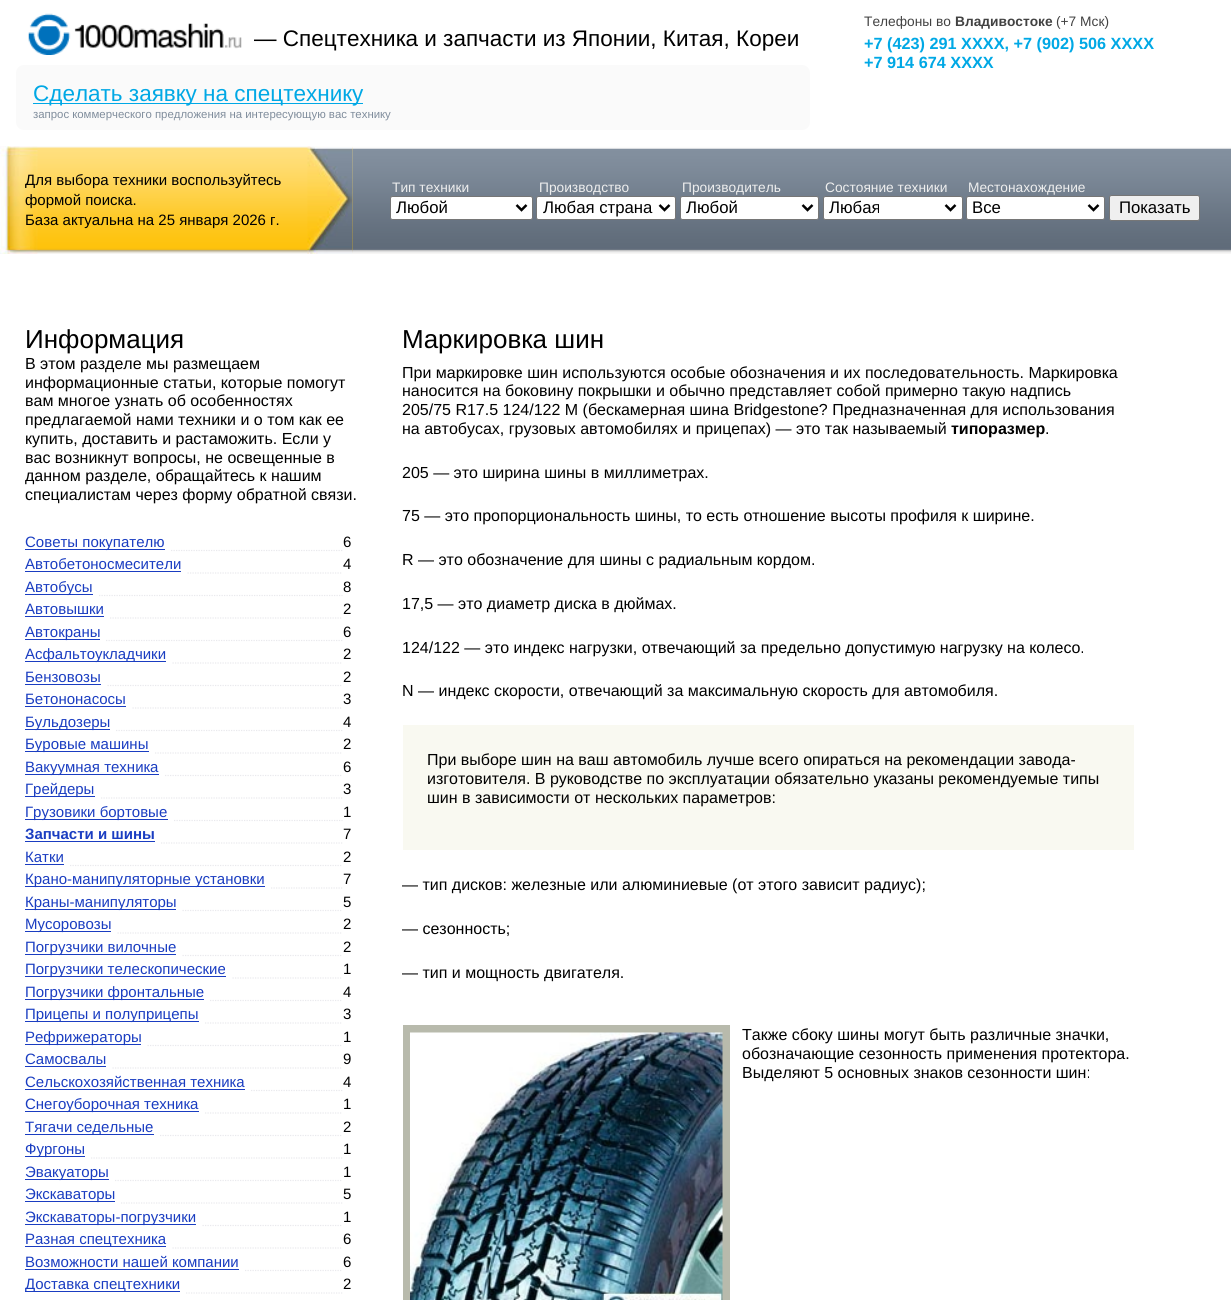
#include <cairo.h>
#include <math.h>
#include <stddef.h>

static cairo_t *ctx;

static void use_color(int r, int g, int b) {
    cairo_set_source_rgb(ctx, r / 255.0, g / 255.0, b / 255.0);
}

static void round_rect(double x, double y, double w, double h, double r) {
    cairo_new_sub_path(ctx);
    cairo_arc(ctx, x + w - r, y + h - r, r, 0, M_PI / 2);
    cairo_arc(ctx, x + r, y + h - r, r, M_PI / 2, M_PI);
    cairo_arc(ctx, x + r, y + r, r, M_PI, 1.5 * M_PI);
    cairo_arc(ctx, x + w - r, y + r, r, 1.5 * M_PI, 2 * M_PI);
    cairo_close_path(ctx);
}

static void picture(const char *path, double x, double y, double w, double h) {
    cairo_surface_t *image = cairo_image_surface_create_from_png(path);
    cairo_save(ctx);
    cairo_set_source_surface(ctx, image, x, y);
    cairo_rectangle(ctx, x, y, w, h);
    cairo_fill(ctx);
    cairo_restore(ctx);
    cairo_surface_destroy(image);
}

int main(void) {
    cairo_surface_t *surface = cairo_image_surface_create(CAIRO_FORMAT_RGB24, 1231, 1300);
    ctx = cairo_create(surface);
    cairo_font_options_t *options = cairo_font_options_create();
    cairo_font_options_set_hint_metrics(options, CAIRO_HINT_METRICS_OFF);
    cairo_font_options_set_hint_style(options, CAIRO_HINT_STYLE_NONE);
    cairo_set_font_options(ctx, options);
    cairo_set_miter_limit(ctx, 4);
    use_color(255, 255, 255);
    cairo_paint(ctx);
    picture("img1.png", 28, 13, 214, 42);
    cairo_select_font_face(ctx, "Liberation Sans", CAIRO_FONT_SLANT_NORMAL, CAIRO_FONT_WEIGHT_NORMAL);
    cairo_set_font_size(ctx, 22.5);
    use_color(0, 0, 0);
    cairo_move_to(ctx, 254, 46);
    cairo_show_text(ctx, "— Спецтехника и запчасти из Японии, Китая, Кореи");
    use_color(250, 250, 250);
    round_rect(16, 65, 794, 65, 8);
    cairo_fill(ctx);
    use_color(0, 168, 229);
    cairo_rectangle(ctx, 33, 103, 330, 1);
    cairo_fill(ctx);
    cairo_move_to(ctx, 33, 101);
    cairo_show_text(ctx, "Сделать заявку на спецтехнику");
    cairo_set_font_size(ctx, 11.4);
    use_color(128, 141, 156);
    cairo_move_to(ctx, 33, 118);
    cairo_show_text(ctx, "запрос коммерческого предложения на интересующую вас технику");
    cairo_set_font_size(ctx, 13.75);
    use_color(66, 66, 66);
    cairo_move_to(ctx, 864, 26);
    cairo_show_text(ctx, "Телефоны во");
    cairo_select_font_face(ctx, "Liberation Sans", CAIRO_FONT_SLANT_NORMAL, CAIRO_FONT_WEIGHT_BOLD);
    cairo_move_to(ctx, 955, 26);
    cairo_show_text(ctx, "Владивостоке");
    cairo_select_font_face(ctx, "Liberation Sans", CAIRO_FONT_SLANT_NORMAL, CAIRO_FONT_WEIGHT_NORMAL);
    cairo_move_to(ctx, 1056, 26);
    cairo_show_text(ctx, "(+7 Мск)");
    cairo_select_font_face(ctx, "Liberation Sans", CAIRO_FONT_SLANT_NORMAL, CAIRO_FONT_WEIGHT_BOLD);
    cairo_set_font_size(ctx, 16.25);
    use_color(0, 168, 229);
    cairo_move_to(ctx, 864, 49);
    cairo_show_text(ctx, "+7 (423) 291 XXXX, +7 (902) 506 XXXX");
    cairo_move_to(ctx, 864, 68);
    cairo_show_text(ctx, "+7 914 674 XXXX");
    picture("img2.png", 0, 146, 1231, 108);
    picture("img3.png", 0, 146, 38, 108);
    cairo_select_font_face(ctx, "Liberation Sans", CAIRO_FONT_SLANT_NORMAL, CAIRO_FONT_WEIGHT_NORMAL);
    cairo_set_font_size(ctx, 15);
    use_color(0, 0, 0);
    cairo_move_to(ctx, 25, 185);
    cairo_show_text(ctx, "Для выбора техники воспользуйтесь");
    cairo_move_to(ctx, 25, 205);
    cairo_show_text(ctx, "формой поиска.");
    cairo_move_to(ctx, 25, 225);
    cairo_show_text(ctx, "База актуальна на 25 января 2026 г.");
    picture("img4.png", 307, 146, 46, 108);
    picture("img5.png", 352, 146, 879, 108);
    cairo_set_font_size(ctx, 13.75);
    use_color(238, 238, 238);
    cairo_move_to(ctx, 392, 192);
    cairo_show_text(ctx, "Тип техники");
    cairo_move_to(ctx, 539, 192);
    cairo_show_text(ctx, "Производство");
    cairo_move_to(ctx, 682, 192);
    cairo_show_text(ctx, "Производитель");
    cairo_move_to(ctx, 825, 192);
    cairo_show_text(ctx, "Состояние техники");
    cairo_move_to(ctx, 968, 192);
    cairo_show_text(ctx, "Местонахождение");
    use_color(255, 255, 255);
    round_rect(390.5, 196.5, 142, 23, 2);
    cairo_fill_preserve(ctx);
    use_color(118, 118, 118);
    cairo_set_line_width(ctx, 1);
    cairo_stroke(ctx);
    cairo_new_path(ctx);
    cairo_move_to(ctx, 516.5, 205);
    cairo_line_to(ctx, 521.5, 210);
    cairo_line_to(ctx, 526.5, 205);
    use_color(0, 0, 0);
    cairo_set_line_width(ctx, 2.5);
    cairo_stroke(ctx);
    cairo_set_font_size(ctx, 16.75);
    cairo_move_to(ctx, 396, 213);
    cairo_show_text(ctx, "Любой");
    use_color(255, 255, 255);
    round_rect(536.5, 196.5, 139, 23, 2);
    cairo_fill_preserve(ctx);
    use_color(118, 118, 118);
    cairo_set_line_width(ctx, 1);
    cairo_stroke(ctx);
    cairo_new_path(ctx);
    cairo_move_to(ctx, 659.5, 205);
    cairo_line_to(ctx, 664.5, 210);
    cairo_line_to(ctx, 669.5, 205);
    use_color(0, 0, 0);
    cairo_set_line_width(ctx, 2.5);
    cairo_stroke(ctx);
    cairo_move_to(ctx, 543, 213);
    cairo_show_text(ctx, "Любая страна");
    use_color(255, 255, 255);
    round_rect(680.5, 196.5, 138, 23, 2);
    cairo_fill_preserve(ctx);
    use_color(118, 118, 118);
    cairo_set_line_width(ctx, 1);
    cairo_stroke(ctx);
    cairo_new_path(ctx);
    cairo_move_to(ctx, 802.5, 205);
    cairo_line_to(ctx, 807.5, 210);
    cairo_line_to(ctx, 812.5, 205);
    use_color(0, 0, 0);
    cairo_set_line_width(ctx, 2.5);
    cairo_stroke(ctx);
    cairo_move_to(ctx, 686, 213);
    cairo_show_text(ctx, "Любой");
    use_color(255, 255, 255);
    round_rect(823.5, 196.5, 139, 23, 2);
    cairo_fill_preserve(ctx);
    use_color(118, 118, 118);
    cairo_set_line_width(ctx, 1);
    cairo_stroke(ctx);
    cairo_new_path(ctx);
    cairo_move_to(ctx, 945.5, 205);
    cairo_line_to(ctx, 950.5, 210);
    cairo_line_to(ctx, 955.5, 205);
    use_color(0, 0, 0);
    cairo_set_line_width(ctx, 2.5);
    cairo_stroke(ctx);
    cairo_move_to(ctx, 829, 213);
    cairo_show_text(ctx, "Любая");
    use_color(255, 255, 255);
    round_rect(966.5, 196.5, 138, 23, 2);
    cairo_fill_preserve(ctx);
    use_color(118, 118, 118);
    cairo_set_line_width(ctx, 1);
    cairo_stroke(ctx);
    cairo_new_path(ctx);
    cairo_move_to(ctx, 1088.5, 205);
    cairo_line_to(ctx, 1093.5, 210);
    cairo_line_to(ctx, 1098.5, 205);
    use_color(0, 0, 0);
    cairo_set_line_width(ctx, 2.5);
    cairo_stroke(ctx);
    cairo_move_to(ctx, 972, 213);
    cairo_show_text(ctx, "Все");
    use_color(239, 239, 239);
    round_rect(1109.5, 195.5, 90, 25, 2);
    cairo_fill_preserve(ctx);
    use_color(118, 118, 118);
    cairo_set_line_width(ctx, 1);
    cairo_stroke(ctx);
    use_color(0, 0, 0);
    cairo_move_to(ctx, 1119, 213);
    cairo_show_text(ctx, "Показать");
    cairo_set_font_size(ctx, 26);
    cairo_move_to(ctx, 25, 348);
    cairo_show_text(ctx, "Информация");
    cairo_set_font_size(ctx, 16);
    cairo_move_to(ctx, 25, 369);
    cairo_show_text(ctx, "В этом разделе мы размещаем");
    cairo_move_to(ctx, 25, 388);
    cairo_show_text(ctx, "информационные статьи, которые помогут");
    cairo_move_to(ctx, 25, 406);
    cairo_show_text(ctx, "вам многое узнать об особенностях");
    cairo_move_to(ctx, 25, 425);
    cairo_show_text(ctx, "предлагаемой нами техники и о том как ее");
    cairo_move_to(ctx, 25, 444);
    cairo_show_text(ctx, "купить, доставить и растаможить. Если у");
    cairo_move_to(ctx, 25, 463);
    cairo_show_text(ctx, "вас возникнут вопросы, не освещенные в");
    cairo_move_to(ctx, 25, 481);
    cairo_show_text(ctx, "данном разделе, обращайтесь к нашим");
    cairo_move_to(ctx, 25, 500);
    cairo_show_text(ctx, "специалистам через форму обратной связи.");
    use_color(26, 61, 193);
    cairo_rectangle(ctx, 25, 549, 140, 1);
    cairo_fill(ctx);
    cairo_set_font_size(ctx, 15);
    cairo_move_to(ctx, 25, 547);
    cairo_show_text(ctx, "Советы покупателю");
    use_color(0, 0, 0);
    cairo_move_to(ctx, 343, 547);
    cairo_show_text(ctx, "6");
    cairo_new_path(ctx);
    cairo_move_to(ctx, 171, 550.5);
    cairo_line_to(ctx, 342.5, 550.5);
    use_color(233, 233, 237);
    cairo_set_line_width(ctx, 1.2);
    cairo_set_dash(ctx, (double[]){1.25, 1.25}, 2, 0);
    cairo_stroke(ctx);
    use_color(26, 61, 193);
    cairo_move_to(ctx, 25, 569);
    cairo_show_text(ctx, "Автобетоносмесители");
    cairo_rectangle(ctx, 25, 571, 156, 1);
    cairo_fill(ctx);
    use_color(0, 0, 0);
    cairo_move_to(ctx, 343, 569);
    cairo_show_text(ctx, "4");
    cairo_new_path(ctx);
    cairo_move_to(ctx, 187.5, 573);
    cairo_line_to(ctx, 342.5, 573);
    use_color(233, 233, 237);
    cairo_stroke(ctx);
    use_color(26, 61, 193);
    cairo_rectangle(ctx, 25, 594, 68, 1);
    cairo_fill(ctx);
    cairo_move_to(ctx, 25, 592);
    cairo_show_text(ctx, "Автобусы");
    use_color(0, 0, 0);
    cairo_move_to(ctx, 343, 592);
    cairo_show_text(ctx, "8");
    cairo_new_path(ctx);
    cairo_move_to(ctx, 99, 595.5);
    cairo_line_to(ctx, 342.5, 595.5);
    use_color(233, 233, 237);
    cairo_stroke(ctx);
    use_color(26, 61, 193);
    cairo_move_to(ctx, 25, 614);
    cairo_show_text(ctx, "Автовышки");
    cairo_rectangle(ctx, 25, 616, 79, 1);
    cairo_fill(ctx);
    use_color(0, 0, 0);
    cairo_move_to(ctx, 343, 614);
    cairo_show_text(ctx, "2");
    cairo_new_path(ctx);
    cairo_move_to(ctx, 110, 618);
    cairo_line_to(ctx, 342.5, 618);
    use_color(233, 233, 237);
    cairo_stroke(ctx);
    use_color(26, 61, 193);
    cairo_rectangle(ctx, 25, 639, 75, 1);
    cairo_fill(ctx);
    cairo_move_to(ctx, 25, 637);
    cairo_show_text(ctx, "Автокраны");
    use_color(0, 0, 0);
    cairo_move_to(ctx, 343, 637);
    cairo_show_text(ctx, "6");
    cairo_new_path(ctx);
    cairo_move_to(ctx, 106, 640.5);
    cairo_line_to(ctx, 342.5, 640.5);
    use_color(233, 233, 237);
    cairo_stroke(ctx);
    use_color(26, 61, 193);
    cairo_rectangle(ctx, 25, 661, 141, 1);
    cairo_fill(ctx);
    cairo_move_to(ctx, 25, 659);
    cairo_show_text(ctx, "Асфальтоукладчики");
    use_color(0, 0, 0);
    cairo_move_to(ctx, 343, 659);
    cairo_show_text(ctx, "2");
    cairo_new_path(ctx);
    cairo_move_to(ctx, 172.5, 663);
    cairo_line_to(ctx, 342.5, 663);
    use_color(233, 233, 237);
    cairo_stroke(ctx);
    use_color(26, 61, 193);
    cairo_move_to(ctx, 25, 682);
    cairo_show_text(ctx, "Бензовозы");
    cairo_rectangle(ctx, 25, 684, 76, 1);
    cairo_fill(ctx);
    use_color(0, 0, 0);
    cairo_move_to(ctx, 343, 682);
    cairo_show_text(ctx, "2");
    cairo_new_path(ctx);
    cairo_move_to(ctx, 107.5, 685.5);
    cairo_line_to(ctx, 342.5, 685.5);
    use_color(233, 233, 237);
    cairo_stroke(ctx);
    use_color(26, 61, 193);
    cairo_move_to(ctx, 25, 704);
    cairo_show_text(ctx, "Бетононасосы");
    cairo_rectangle(ctx, 25, 706, 101, 1);
    cairo_fill(ctx);
    use_color(0, 0, 0);
    cairo_move_to(ctx, 343, 704);
    cairo_show_text(ctx, "3");
    cairo_new_path(ctx);
    cairo_move_to(ctx, 132.5, 708);
    cairo_line_to(ctx, 342.5, 708);
    use_color(233, 233, 237);
    cairo_stroke(ctx);
    use_color(26, 61, 193);
    cairo_rectangle(ctx, 25, 729, 85, 1);
    cairo_fill(ctx);
    cairo_move_to(ctx, 25, 727);
    cairo_show_text(ctx, "Бульдозеры");
    use_color(0, 0, 0);
    cairo_move_to(ctx, 343, 727);
    cairo_show_text(ctx, "4");
    cairo_new_path(ctx);
    cairo_move_to(ctx, 116, 730.5);
    cairo_line_to(ctx, 342.5, 730.5);
    use_color(233, 233, 237);
    cairo_stroke(ctx);
    use_color(26, 61, 193);
    cairo_rectangle(ctx, 25, 751, 124, 1);
    cairo_fill(ctx);
    cairo_move_to(ctx, 25, 749);
    cairo_show_text(ctx, "Буровые машины");
    use_color(0, 0, 0);
    cairo_move_to(ctx, 343, 749);
    cairo_show_text(ctx, "2");
    cairo_new_path(ctx);
    cairo_move_to(ctx, 155, 753);
    cairo_line_to(ctx, 342.5, 753);
    use_color(233, 233, 237);
    cairo_stroke(ctx);
    use_color(26, 61, 193);
    cairo_rectangle(ctx, 25, 774, 134, 1);
    cairo_fill(ctx);
    cairo_move_to(ctx, 25, 772);
    cairo_show_text(ctx, "Вакуумная техника");
    use_color(0, 0, 0);
    cairo_move_to(ctx, 343, 772);
    cairo_show_text(ctx, "6");
    cairo_new_path(ctx);
    cairo_move_to(ctx, 165, 775.5);
    cairo_line_to(ctx, 342.5, 775.5);
    use_color(233, 233, 237);
    cairo_stroke(ctx);
    use_color(26, 61, 193);
    cairo_rectangle(ctx, 25, 796, 70, 1);
    cairo_fill(ctx);
    cairo_move_to(ctx, 25, 794);
    cairo_show_text(ctx, "Грейдеры");
    use_color(0, 0, 0);
    cairo_move_to(ctx, 343, 794);
    cairo_show_text(ctx, "3");
    cairo_new_path(ctx);
    cairo_move_to(ctx, 101, 798);
    cairo_line_to(ctx, 342.5, 798);
    use_color(233, 233, 237);
    cairo_stroke(ctx);
    use_color(26, 61, 193);
    cairo_rectangle(ctx, 25, 819, 143, 1);
    cairo_fill(ctx);
    cairo_move_to(ctx, 25, 817);
    cairo_show_text(ctx, "Грузовики бортовые");
    use_color(0, 0, 0);
    cairo_move_to(ctx, 343, 817);
    cairo_show_text(ctx, "1");
    cairo_new_path(ctx);
    cairo_move_to(ctx, 174, 820.5);
    cairo_line_to(ctx, 342.5, 820.5);
    use_color(233, 233, 237);
    cairo_stroke(ctx);
    cairo_select_font_face(ctx, "Liberation Sans", CAIRO_FONT_SLANT_NORMAL, CAIRO_FONT_WEIGHT_BOLD);
    use_color(26, 61, 193);
    cairo_move_to(ctx, 25, 839);
    cairo_show_text(ctx, "Запчасти и шины");
    cairo_rectangle(ctx, 25, 841, 130, 1);
    cairo_fill(ctx);
    cairo_select_font_face(ctx, "Liberation Sans", CAIRO_FONT_SLANT_NORMAL, CAIRO_FONT_WEIGHT_NORMAL);
    use_color(0, 0, 0);
    cairo_move_to(ctx, 343, 839);
    cairo_show_text(ctx, "7");
    cairo_new_path(ctx);
    cairo_move_to(ctx, 161, 843);
    cairo_line_to(ctx, 342.5, 843);
    use_color(233, 233, 237);
    cairo_stroke(ctx);
    use_color(26, 61, 193);
    cairo_move_to(ctx, 25, 862);
    cairo_show_text(ctx, "Катки");
    cairo_rectangle(ctx, 25, 864, 39, 1);
    cairo_fill(ctx);
    use_color(0, 0, 0);
    cairo_move_to(ctx, 343, 862);
    cairo_show_text(ctx, "2");
    cairo_new_path(ctx);
    cairo_move_to(ctx, 70, 865.5);
    cairo_line_to(ctx, 342.5, 865.5);
    use_color(233, 233, 237);
    cairo_stroke(ctx);
    use_color(26, 61, 193);
    cairo_rectangle(ctx, 25, 886, 240, 1);
    cairo_fill(ctx);
    cairo_move_to(ctx, 25, 884);
    cairo_show_text(ctx, "Крано-манипуляторные установки");
    use_color(0, 0, 0);
    cairo_move_to(ctx, 343, 884);
    cairo_show_text(ctx, "7");
    cairo_new_path(ctx);
    cairo_move_to(ctx, 271, 888);
    cairo_line_to(ctx, 342.5, 888);
    use_color(233, 233, 237);
    cairo_stroke(ctx);
    use_color(26, 61, 193);
    cairo_rectangle(ctx, 25, 909, 151, 1);
    cairo_fill(ctx);
    cairo_move_to(ctx, 25, 907);
    cairo_show_text(ctx, "Краны-манипуляторы");
    use_color(0, 0, 0);
    cairo_move_to(ctx, 343, 907);
    cairo_show_text(ctx, "5");
    cairo_new_path(ctx);
    cairo_move_to(ctx, 182.5, 910.5);
    cairo_line_to(ctx, 342.5, 910.5);
    use_color(233, 233, 237);
    cairo_stroke(ctx);
    use_color(26, 61, 193);
    cairo_rectangle(ctx, 25, 931, 86, 1);
    cairo_fill(ctx);
    cairo_move_to(ctx, 25, 929);
    cairo_show_text(ctx, "Мусоровозы");
    use_color(0, 0, 0);
    cairo_move_to(ctx, 343, 929);
    cairo_show_text(ctx, "2");
    cairo_new_path(ctx);
    cairo_move_to(ctx, 117.5, 933);
    cairo_line_to(ctx, 342.5, 933);
    use_color(233, 233, 237);
    cairo_stroke(ctx);
    use_color(26, 61, 193);
    cairo_rectangle(ctx, 25, 954, 151, 1);
    cairo_fill(ctx);
    cairo_move_to(ctx, 25, 952);
    cairo_show_text(ctx, "Погрузчики вилочные");
    use_color(0, 0, 0);
    cairo_move_to(ctx, 343, 952);
    cairo_show_text(ctx, "2");
    cairo_new_path(ctx);
    cairo_move_to(ctx, 182.5, 955.5);
    cairo_line_to(ctx, 342.5, 955.5);
    use_color(233, 233, 237);
    cairo_stroke(ctx);
    use_color(26, 61, 193);
    cairo_rectangle(ctx, 25, 976, 201, 1);
    cairo_fill(ctx);
    cairo_move_to(ctx, 25, 974);
    cairo_show_text(ctx, "Погрузчики телескопические");
    use_color(0, 0, 0);
    cairo_move_to(ctx, 343, 974);
    cairo_show_text(ctx, "1");
    cairo_new_path(ctx);
    cairo_move_to(ctx, 232.5, 978);
    cairo_line_to(ctx, 342.5, 978);
    use_color(233, 233, 237);
    cairo_stroke(ctx);
    use_color(26, 61, 193);
    cairo_rectangle(ctx, 25, 999, 179, 1);
    cairo_fill(ctx);
    cairo_move_to(ctx, 25, 997);
    cairo_show_text(ctx, "Погрузчики фронтальные");
    use_color(0, 0, 0);
    cairo_move_to(ctx, 343, 997);
    cairo_show_text(ctx, "4");
    cairo_new_path(ctx);
    cairo_move_to(ctx, 210, 1000.5);
    cairo_line_to(ctx, 342.5, 1000.5);
    use_color(233, 233, 237);
    cairo_stroke(ctx);
    use_color(26, 61, 193);
    cairo_rectangle(ctx, 25, 1021, 174, 1);
    cairo_fill(ctx);
    cairo_move_to(ctx, 25, 1019);
    cairo_show_text(ctx, "Прицепы и полуприцепы");
    use_color(0, 0, 0);
    cairo_move_to(ctx, 343, 1019);
    cairo_show_text(ctx, "3");
    cairo_new_path(ctx);
    cairo_move_to(ctx, 205, 1023);
    cairo_line_to(ctx, 342.5, 1023);
    use_color(233, 233, 237);
    cairo_stroke(ctx);
    use_color(26, 61, 193);
    cairo_rectangle(ctx, 25, 1044, 116, 1);
    cairo_fill(ctx);
    cairo_move_to(ctx, 25, 1042);
    cairo_show_text(ctx, "Рефрижераторы");
    use_color(0, 0, 0);
    cairo_move_to(ctx, 343, 1042);
    cairo_show_text(ctx, "1");
    cairo_new_path(ctx);
    cairo_move_to(ctx, 147.5, 1045.5);
    cairo_line_to(ctx, 342.5, 1045.5);
    use_color(233, 233, 237);
    cairo_stroke(ctx);
    use_color(26, 61, 193);
    cairo_move_to(ctx, 25, 1064);
    cairo_show_text(ctx, "Самосвалы");
    cairo_rectangle(ctx, 25, 1066, 81, 1);
    cairo_fill(ctx);
    use_color(0, 0, 0);
    cairo_move_to(ctx, 343, 1064);
    cairo_show_text(ctx, "9");
    cairo_new_path(ctx);
    cairo_move_to(ctx, 112.5, 1068);
    cairo_line_to(ctx, 342.5, 1068);
    use_color(233, 233, 237);
    cairo_stroke(ctx);
    use_color(26, 61, 193);
    cairo_move_to(ctx, 25, 1087);
    cairo_show_text(ctx, "Сельскохозяйственная техника");
    cairo_rectangle(ctx, 25, 1089, 220, 1);
    cairo_fill(ctx);
    use_color(0, 0, 0);
    cairo_move_to(ctx, 343, 1087);
    cairo_show_text(ctx, "4");
    cairo_new_path(ctx);
    cairo_move_to(ctx, 251, 1090.5);
    cairo_line_to(ctx, 342.5, 1090.5);
    use_color(233, 233, 237);
    cairo_stroke(ctx);
    use_color(26, 61, 193);
    cairo_rectangle(ctx, 25, 1111, 174, 1);
    cairo_fill(ctx);
    cairo_move_to(ctx, 25, 1109);
    cairo_show_text(ctx, "Снегоуборочная техника");
    use_color(0, 0, 0);
    cairo_move_to(ctx, 343, 1109);
    cairo_show_text(ctx, "1");
    cairo_new_path(ctx);
    cairo_move_to(ctx, 205, 1113);
    cairo_line_to(ctx, 342.5, 1113);
    use_color(233, 233, 237);
    cairo_stroke(ctx);
    use_color(26, 61, 193);
    cairo_rectangle(ctx, 25, 1134, 129, 1);
    cairo_fill(ctx);
    cairo_move_to(ctx, 25, 1132);
    cairo_show_text(ctx, "Тягачи седельные");
    use_color(0, 0, 0);
    cairo_move_to(ctx, 343, 1132);
    cairo_show_text(ctx, "2");
    cairo_new_path(ctx);
    cairo_move_to(ctx, 160, 1135.5);
    cairo_line_to(ctx, 342.5, 1135.5);
    use_color(233, 233, 237);
    cairo_stroke(ctx);
    use_color(26, 61, 193);
    cairo_rectangle(ctx, 25, 1156, 60, 1);
    cairo_fill(ctx);
    cairo_move_to(ctx, 25, 1154);
    cairo_show_text(ctx, "Фургоны");
    use_color(0, 0, 0);
    cairo_move_to(ctx, 343, 1154);
    cairo_show_text(ctx, "1");
    cairo_new_path(ctx);
    cairo_move_to(ctx, 91, 1158);
    cairo_line_to(ctx, 342.5, 1158);
    use_color(233, 233, 237);
    cairo_stroke(ctx);
    use_color(26, 61, 193);
    cairo_rectangle(ctx, 25, 1179, 84, 1);
    cairo_fill(ctx);
    cairo_move_to(ctx, 25, 1177);
    cairo_show_text(ctx, "Эвакуаторы");
    use_color(0, 0, 0);
    cairo_move_to(ctx, 343, 1177);
    cairo_show_text(ctx, "1");
    cairo_new_path(ctx);
    cairo_move_to(ctx, 115, 1180.5);
    cairo_line_to(ctx, 342.5, 1180.5);
    use_color(233, 233, 237);
    cairo_stroke(ctx);
    use_color(26, 61, 193);
    cairo_rectangle(ctx, 25, 1201, 90, 1);
    cairo_fill(ctx);
    cairo_move_to(ctx, 25, 1199);
    cairo_show_text(ctx, "Экскаваторы");
    use_color(0, 0, 0);
    cairo_move_to(ctx, 343, 1199);
    cairo_show_text(ctx, "5");
    cairo_new_path(ctx);
    cairo_move_to(ctx, 121, 1203);
    cairo_line_to(ctx, 342.5, 1203);
    use_color(233, 233, 237);
    cairo_stroke(ctx);
    use_color(26, 61, 193);
    cairo_rectangle(ctx, 25, 1224, 171, 1);
    cairo_fill(ctx);
    cairo_move_to(ctx, 25, 1222);
    cairo_show_text(ctx, "Экскаваторы-погрузчики");
    use_color(0, 0, 0);
    cairo_move_to(ctx, 343, 1222);
    cairo_show_text(ctx, "1");
    cairo_new_path(ctx);
    cairo_move_to(ctx, 202.5, 1225.5);
    cairo_line_to(ctx, 342.5, 1225.5);
    use_color(233, 233, 237);
    cairo_stroke(ctx);
    use_color(26, 61, 193);
    cairo_rectangle(ctx, 25, 1246, 141, 1);
    cairo_fill(ctx);
    cairo_move_to(ctx, 25, 1244);
    cairo_show_text(ctx, "Разная спецтехника");
    use_color(0, 0, 0);
    cairo_move_to(ctx, 343, 1244);
    cairo_show_text(ctx, "6");
    cairo_new_path(ctx);
    cairo_move_to(ctx, 172.5, 1248);
    cairo_line_to(ctx, 342.5, 1248);
    use_color(233, 233, 237);
    cairo_stroke(ctx);
    use_color(26, 61, 193);
    cairo_move_to(ctx, 25, 1267);
    cairo_show_text(ctx, "Возможности нашей компании");
    cairo_rectangle(ctx, 25, 1269, 214, 1);
    cairo_fill(ctx);
    use_color(0, 0, 0);
    cairo_move_to(ctx, 343, 1267);
    cairo_show_text(ctx, "6");
    cairo_new_path(ctx);
    cairo_move_to(ctx, 245, 1270.5);
    cairo_line_to(ctx, 342.5, 1270.5);
    use_color(233, 233, 237);
    cairo_stroke(ctx);
    use_color(26, 61, 193);
    cairo_rectangle(ctx, 25, 1291, 155, 1);
    cairo_fill(ctx);
    cairo_move_to(ctx, 25, 1289);
    cairo_show_text(ctx, "Доставка спецтехники");
    use_color(0, 0, 0);
    cairo_move_to(ctx, 343, 1289);
    cairo_show_text(ctx, "2");
    cairo_new_path(ctx);
    cairo_move_to(ctx, 186, 1293);
    cairo_line_to(ctx, 342.5, 1293);
    use_color(233, 233, 237);
    cairo_stroke(ctx);
    cairo_set_font_size(ctx, 26);
    use_color(0, 0, 0);
    cairo_move_to(ctx, 402, 348);
    cairo_show_text(ctx, "Маркировка шин");
    cairo_set_font_size(ctx, 16);
    cairo_move_to(ctx, 402, 378);
    cairo_show_text(ctx, "При маркировке шин используются особые обозначения и их последовательность. Маркировка");
    cairo_move_to(ctx, 402, 396);
    cairo_show_text(ctx, "наносится на боковину покрышки и обычно представляет собой примерно такую надпись");
    cairo_move_to(ctx, 402, 415);
    cairo_show_text(ctx, "205/75 R17.5 124/122 M (бескамерная шина Bridgestone? Предназначенная для использования");
    cairo_move_to(ctx, 402, 434);
    cairo_show_text(ctx, "на автобусах, грузовых автомобилях и прицепах) — это так называемый");
    cairo_select_font_face(ctx, "Liberation Sans", CAIRO_FONT_SLANT_NORMAL, CAIRO_FONT_WEIGHT_BOLD);
    cairo_move_to(ctx, 951, 434);
    cairo_show_text(ctx, "типоразмер");
    cairo_select_font_face(ctx, "Liberation Sans", CAIRO_FONT_SLANT_NORMAL, CAIRO_FONT_WEIGHT_NORMAL);
    cairo_move_to(ctx, 1045, 434);
    cairo_show_text(ctx, ".");
    cairo_move_to(ctx, 402, 478);
    cairo_show_text(ctx, "205 — это ширина шины в миллиметрах.");
    cairo_move_to(ctx, 402, 521);
    cairo_show_text(ctx, "75 — это пропорциональность шины, то есть отношение высоты профиля к ширине.");
    cairo_move_to(ctx, 402, 565);
    cairo_show_text(ctx, "R — это обозначение для шины с радиальным кордом.");
    cairo_move_to(ctx, 402, 609);
    cairo_show_text(ctx, "17,5 — это диаметр диска в дюймах.");
    cairo_move_to(ctx, 402, 653);
    cairo_show_text(ctx, "124/122 — это индекс нагрузки, отвечающий за предельно допустимую нагрузку на колесо.");
    cairo_move_to(ctx, 402, 696);
    cairo_show_text(ctx, "N — индекс скорости, отвечающий за максимальную скорость для автомобиля.");
    use_color(249, 249, 241);
    cairo_rectangle(ctx, 403, 725, 731, 125);
    cairo_fill(ctx);
    use_color(0, 0, 0);
    cairo_move_to(ctx, 427, 765);
    cairo_show_text(ctx, "При выборе шин на ваш автомобиль лучше всего опираться на рекомендации завода-");
    cairo_move_to(ctx, 427, 784);
    cairo_show_text(ctx, "изготовителя. В руководстве по эксплуатации обязательно указаны рекомендуемые типы");
    cairo_move_to(ctx, 427, 803);
    cairo_show_text(ctx, "шин в зависимости от нескольких параметров:");
    cairo_move_to(ctx, 402, 890);
    cairo_show_text(ctx, "— тип дисков: железные или алюминиевые (от этого зависит радиус);");
    cairo_move_to(ctx, 402, 934);
    cairo_show_text(ctx, "— сезонность;");
    cairo_move_to(ctx, 402, 978);
    cairo_show_text(ctx, "— тип и мощность двигателя.");
    cairo_rectangle(ctx, 407, 1029, 319, 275);
    use_color(184, 186, 172);
    cairo_set_line_width(ctx, 8);
    cairo_set_dash(ctx, NULL, 0, 0);
    cairo_stroke(ctx);
    picture("img6.png", 410, 1032, 313, 268);
    use_color(0, 0, 0);
    cairo_move_to(ctx, 742, 1040);
    cairo_show_text(ctx, "Также сбоку шины могут быть различные значки,");
    cairo_move_to(ctx, 742, 1059);
    cairo_show_text(ctx, "обозначающие сезонность применения протектора.");
    cairo_move_to(ctx, 742, 1078);
    cairo_show_text(ctx, "Выделяют 5 основных знаков сезонности шин:");
    cairo_surface_write_to_png(surface, "result.png");
    cairo_font_options_destroy(options);
    cairo_destroy(ctx);
    cairo_surface_destroy(surface);
    return 0;
}
